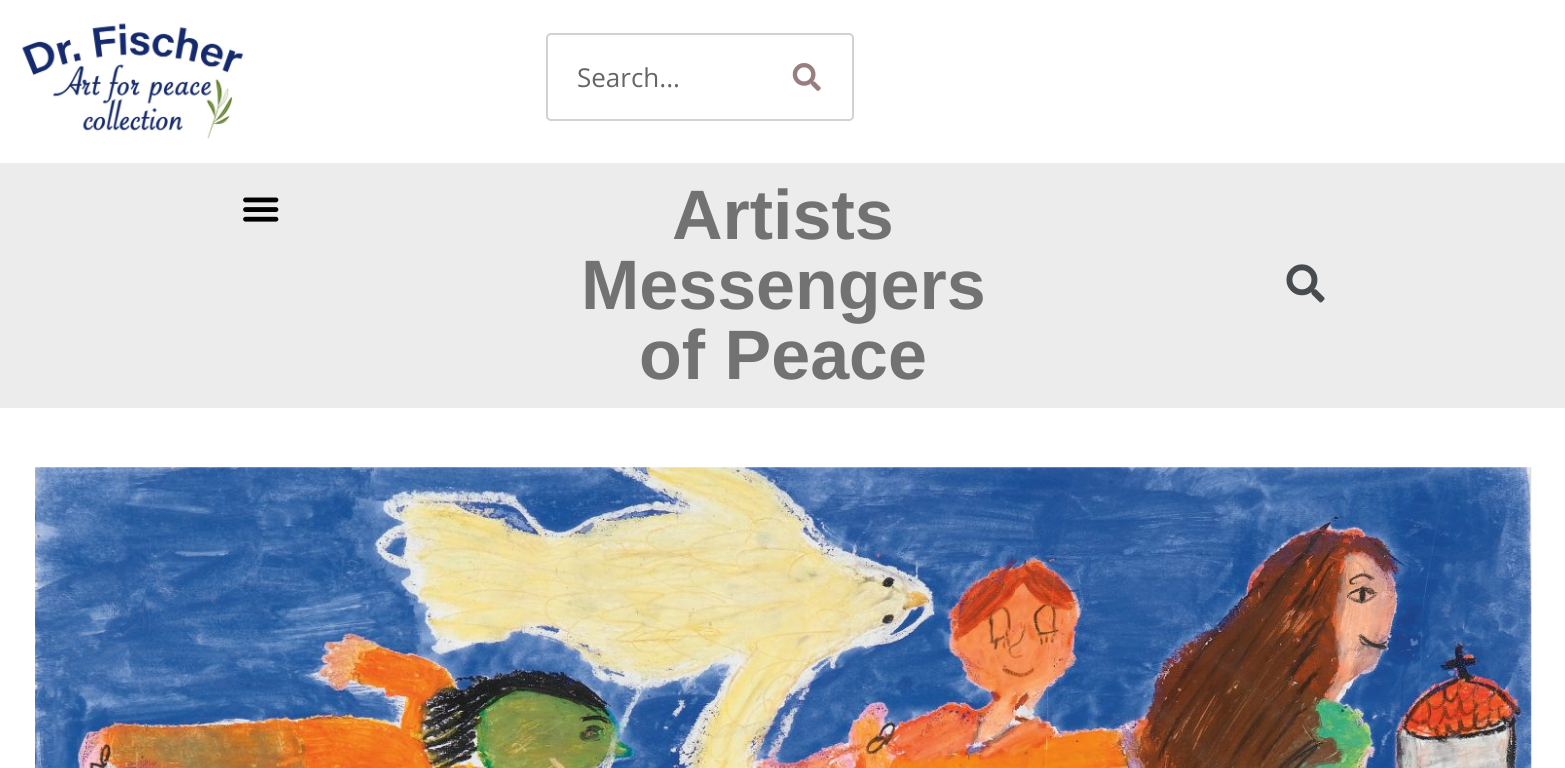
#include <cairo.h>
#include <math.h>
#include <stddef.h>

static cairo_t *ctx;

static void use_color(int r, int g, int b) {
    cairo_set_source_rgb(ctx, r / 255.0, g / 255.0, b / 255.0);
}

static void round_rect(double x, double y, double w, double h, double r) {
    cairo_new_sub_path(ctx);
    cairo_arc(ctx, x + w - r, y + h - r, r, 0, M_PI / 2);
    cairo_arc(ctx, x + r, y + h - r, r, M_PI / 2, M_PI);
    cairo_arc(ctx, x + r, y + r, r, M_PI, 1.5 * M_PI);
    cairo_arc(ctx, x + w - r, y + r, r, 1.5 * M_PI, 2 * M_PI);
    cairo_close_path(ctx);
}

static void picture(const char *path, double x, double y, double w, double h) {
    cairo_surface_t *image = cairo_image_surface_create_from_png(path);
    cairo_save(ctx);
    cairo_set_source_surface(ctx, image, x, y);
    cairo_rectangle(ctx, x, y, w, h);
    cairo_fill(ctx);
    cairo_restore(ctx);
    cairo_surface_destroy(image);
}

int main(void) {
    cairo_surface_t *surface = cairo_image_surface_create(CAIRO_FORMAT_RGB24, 1565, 768);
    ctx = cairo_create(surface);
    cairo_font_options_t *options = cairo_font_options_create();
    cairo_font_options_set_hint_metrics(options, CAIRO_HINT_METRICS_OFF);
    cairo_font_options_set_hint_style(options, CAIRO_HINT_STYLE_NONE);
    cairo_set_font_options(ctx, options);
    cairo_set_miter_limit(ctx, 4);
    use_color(255, 255, 255);
    cairo_paint(ctx);
    picture("img1.png", 22, 23, 222, 116);
    round_rect(547, 34, 306, 86, 4);
    use_color(210, 210, 210);
    cairo_stroke(ctx);
    cairo_select_font_face(ctx, "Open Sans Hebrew", CAIRO_FONT_SLANT_NORMAL, CAIRO_FONT_WEIGHT_NORMAL);
    cairo_set_font_size(ctx, 26);
    use_color(102, 102, 102);
    cairo_move_to(ctx, 577, 87);
    cairo_show_text(ctx, "Search...");
    use_color(255, 255, 255);
    cairo_new_path(ctx);
    cairo_move_to(ctx, 765, 35);
    cairo_line_to(ctx, 848, 35);
    cairo_curve_to(ctx, 850, 35, 852, 37, 852, 39);
    cairo_line_to(ctx, 852, 115);
    cairo_curve_to(ctx, 852, 117, 850, 119, 848, 119);
    cairo_line_to(ctx, 765, 119);
    cairo_close_path(ctx);
    cairo_fill(ctx);
    picture("img2.png", 792, 63, 29, 28);
    use_color(236, 236, 236);
    cairo_rectangle(ctx, 0, 163, 1565, 245);
    cairo_fill(ctx);
    picture("img3.png", 243, 197, 36, 25);
    cairo_select_font_face(ctx, "Liberation Sans", CAIRO_FONT_SLANT_NORMAL, CAIRO_FONT_WEIGHT_BOLD);
    cairo_set_font_size(ctx, 70);
    use_color(114, 114, 114);
    cairo_move_to(ctx, 672, 239);
    cairo_show_text(ctx, "Artists");
    cairo_move_to(ctx, 581, 309);
    cairo_show_text(ctx, "Messengers");
    cairo_move_to(ctx, 639, 379);
    cairo_show_text(ctx, "of Peace");
    picture("img4.png", 1286, 264, 39, 39);
    picture("img5.png", 35, 467, 1497, 301);
    cairo_surface_write_to_png(surface, "result.png");
    cairo_font_options_destroy(options);
    cairo_destroy(ctx);
    cairo_surface_destroy(surface);
    return 0;
}
